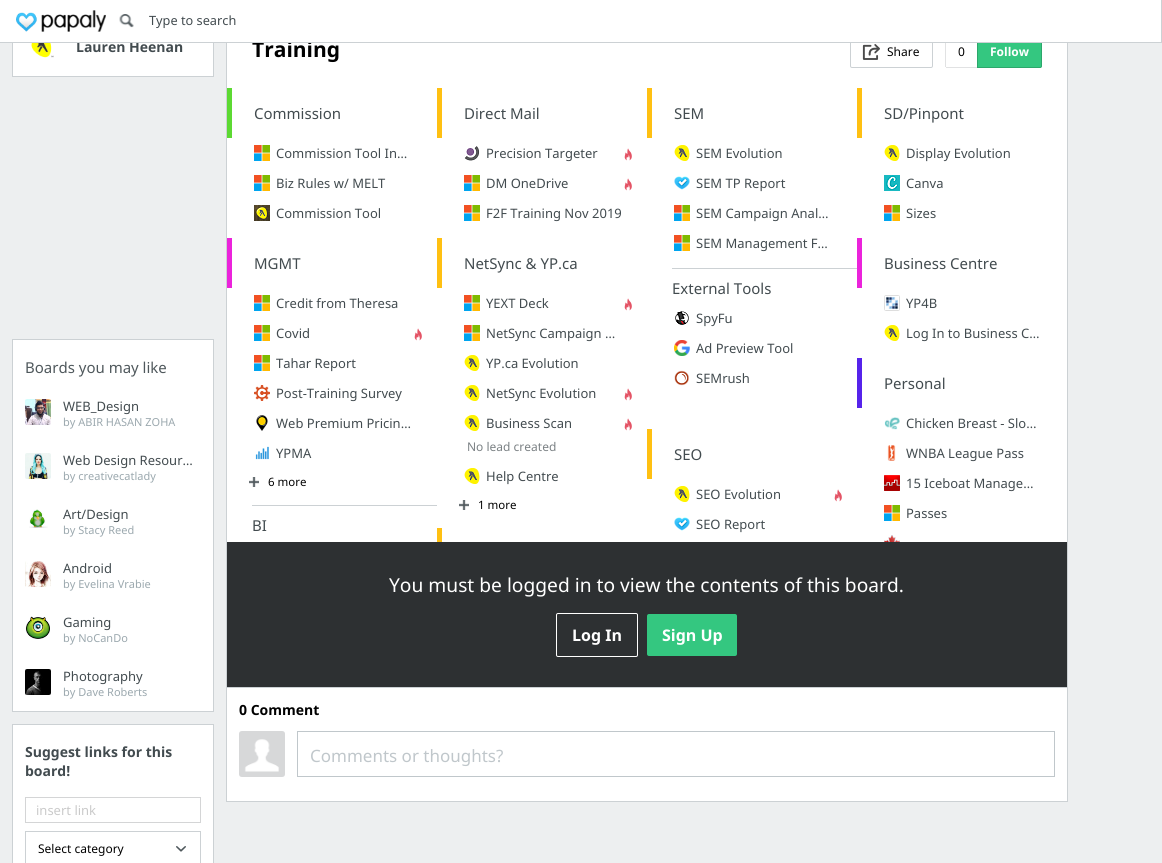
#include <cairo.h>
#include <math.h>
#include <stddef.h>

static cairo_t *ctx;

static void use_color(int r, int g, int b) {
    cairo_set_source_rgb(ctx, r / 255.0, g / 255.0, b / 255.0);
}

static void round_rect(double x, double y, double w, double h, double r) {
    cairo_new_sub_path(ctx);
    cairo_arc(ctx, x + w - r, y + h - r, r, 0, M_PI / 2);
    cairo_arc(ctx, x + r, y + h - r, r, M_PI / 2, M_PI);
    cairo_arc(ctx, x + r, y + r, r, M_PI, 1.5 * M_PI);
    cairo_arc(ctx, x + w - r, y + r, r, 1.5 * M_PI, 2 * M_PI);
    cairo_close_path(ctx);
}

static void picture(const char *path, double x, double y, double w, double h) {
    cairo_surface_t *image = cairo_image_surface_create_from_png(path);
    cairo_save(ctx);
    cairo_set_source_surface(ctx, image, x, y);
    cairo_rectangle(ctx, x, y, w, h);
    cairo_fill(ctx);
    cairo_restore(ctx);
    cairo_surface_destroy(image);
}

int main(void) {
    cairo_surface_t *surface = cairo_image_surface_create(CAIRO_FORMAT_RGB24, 1162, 863);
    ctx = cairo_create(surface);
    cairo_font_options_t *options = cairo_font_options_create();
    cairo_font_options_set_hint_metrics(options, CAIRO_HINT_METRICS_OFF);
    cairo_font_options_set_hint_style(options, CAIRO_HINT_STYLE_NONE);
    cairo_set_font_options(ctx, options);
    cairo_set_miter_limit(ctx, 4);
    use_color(237, 239, 240);
    cairo_paint(ctx);
    use_color(255, 255, 255);
    cairo_rectangle(ctx, 13, 43, 200, 33);
    cairo_fill(ctx);
    cairo_rectangle(ctx, 12.5, 14.5, 201, 62);
    use_color(204, 209, 212);
    cairo_set_line_width(ctx, 1);
    cairo_stroke(ctx);
    use_color(255, 255, 255);
    cairo_rectangle(ctx, 227, 43, 840, 758);
    cairo_fill(ctx);
    cairo_select_font_face(ctx, "Noto Sans", CAIRO_FONT_SLANT_NORMAL, CAIRO_FONT_WEIGHT_BOLD);
    cairo_set_font_size(ctx, 21);
    use_color(0, 0, 0);
    cairo_move_to(ctx, 252, 57);
    cairo_show_text(ctx, "Training");
    picture("img11.png", 862, 44, 18, 16);
    round_rect(850.5, 35.5, 82, 32, 1.5);
    use_color(204, 209, 212);
    cairo_stroke(ctx);
    use_color(225, 226, 227);
    cairo_rectangle(ctx, 945, 36, 1, 31);
    cairo_fill(ctx);
    use_color(52, 199, 128);
    cairo_new_path(ctx);
    cairo_move_to(ctx, 977.5, 35.5);
    cairo_line_to(ctx, 1040, 35.5);
    cairo_curve_to(ctx, 1041, 35.5, 1041.5, 36, 1041.5, 37);
    cairo_line_to(ctx, 1041.5, 66);
    cairo_curve_to(ctx, 1041.5, 67, 1041, 67.5, 1040, 67.5);
    cairo_line_to(ctx, 977.5, 67.5);
    cairo_close_path(ctx);
    cairo_fill_preserve(ctx);
    use_color(44, 167, 107);
    cairo_stroke(ctx);
    use_color(255, 255, 255);
    cairo_rectangle(ctx, 0, 0, 1161, 42);
    cairo_fill(ctx);
    cairo_set_font_size(ctx, 14);
    use_color(66, 75, 79);
    cairo_move_to(ctx, 76, 52);
    cairo_show_text(ctx, "Lauren Heenan");
    use_color(204, 209, 212);
    cairo_rectangle(ctx, 0, 42, 1162, 1);
    cairo_fill(ctx);
    picture("img1.png", 16, 10, 90, 22);
    picture("img2.png", 119, 14, 15, 14);
    cairo_select_font_face(ctx, "Noto Sans", CAIRO_FONT_SLANT_NORMAL, CAIRO_FONT_WEIGHT_NORMAL);
    cairo_set_font_size(ctx, 12.75);
    use_color(66, 75, 79);
    cairo_move_to(ctx, 149, 25);
    cairo_show_text(ctx, "Type to search");
    use_color(204, 209, 212);
    cairo_rectangle(ctx, 1161, 0, 1, 42);
    cairo_fill(ctx);
    picture("img3.png", 31, 43, 23, 15);
    use_color(255, 255, 255);
    cairo_rectangle(ctx, 12.5, 339.5, 201, 372);
    cairo_fill_preserve(ctx);
    use_color(204, 209, 212);
    cairo_stroke(ctx);
    cairo_set_font_size(ctx, 15);
    use_color(79, 88, 92);
    cairo_move_to(ctx, 25, 373);
    cairo_show_text(ctx, "Boards you may like");
    picture("img4.png", 25, 399, 26, 26);
    cairo_set_font_size(ctx, 13);
    use_color(66, 75, 79);
    cairo_move_to(ctx, 63, 411);
    cairo_show_text(ctx, "WEB_Design");
    cairo_set_font_size(ctx, 11);
    use_color(155, 168, 174);
    cairo_move_to(ctx, 63, 426);
    cairo_show_text(ctx, "by ABIR HASAN ZOHA");
    picture("img5.png", 25, 453, 26, 26);
    cairo_set_font_size(ctx, 13);
    use_color(66, 75, 79);
    cairo_move_to(ctx, 63, 465);
    cairo_show_text(ctx, "Web Design Resour…");
    cairo_set_font_size(ctx, 11);
    use_color(155, 168, 174);
    cairo_move_to(ctx, 63, 480);
    cairo_show_text(ctx, "by creativecatlady");
    picture("img6.png", 29, 509, 19, 19);
    cairo_set_font_size(ctx, 13);
    use_color(66, 75, 79);
    cairo_move_to(ctx, 63, 519);
    cairo_show_text(ctx, "Art/Design");
    cairo_set_font_size(ctx, 11);
    use_color(155, 168, 174);
    cairo_move_to(ctx, 63, 534);
    cairo_show_text(ctx, "by Stacy Reed");
    picture("img7.png", 25, 561, 26, 26);
    cairo_set_font_size(ctx, 13);
    use_color(66, 75, 79);
    cairo_move_to(ctx, 63, 573);
    cairo_show_text(ctx, "Android");
    cairo_set_font_size(ctx, 11);
    use_color(155, 168, 174);
    cairo_move_to(ctx, 63, 588);
    cairo_show_text(ctx, "by Evelina Vrabie");
    picture("img8.png", 25, 616, 25, 23);
    cairo_set_font_size(ctx, 13);
    use_color(66, 75, 79);
    cairo_move_to(ctx, 63, 627);
    cairo_show_text(ctx, "Gaming");
    cairo_set_font_size(ctx, 11);
    use_color(155, 168, 174);
    cairo_move_to(ctx, 63, 642);
    cairo_show_text(ctx, "by NoCanDo");
    picture("img9.png", 25, 669, 26, 26);
    cairo_set_font_size(ctx, 13);
    use_color(66, 75, 79);
    cairo_move_to(ctx, 63, 681);
    cairo_show_text(ctx, "Photography");
    cairo_set_font_size(ctx, 11);
    use_color(155, 168, 174);
    cairo_move_to(ctx, 63, 696);
    cairo_show_text(ctx, "by Dave Roberts");
    use_color(255, 255, 255);
    cairo_rectangle(ctx, 12.5, 724.5, 201, 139);
    cairo_fill_preserve(ctx);
    use_color(204, 209, 212);
    cairo_stroke(ctx);
    cairo_select_font_face(ctx, "Noto Sans", CAIRO_FONT_SLANT_NORMAL, CAIRO_FONT_WEIGHT_BOLD);
    cairo_set_font_size(ctx, 14);
    use_color(66, 75, 79);
    cairo_move_to(ctx, 25, 757);
    cairo_show_text(ctx, "Suggest links for this");
    cairo_move_to(ctx, 25, 776);
    cairo_show_text(ctx, "board!");
    cairo_rectangle(ctx, 25.5, 797.5, 175, 25);
    use_color(212, 213, 214);
    cairo_stroke(ctx);
    cairo_select_font_face(ctx, "Noto Sans", CAIRO_FONT_SLANT_NORMAL, CAIRO_FONT_WEIGHT_NORMAL);
    cairo_set_font_size(ctx, 13);
    use_color(202, 202, 202);
    cairo_move_to(ctx, 36, 815);
    cairo_show_text(ctx, "insert link");
    cairo_rectangle(ctx, 25.5, 831.5, 175, 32);
    use_color(204, 209, 212);
    cairo_stroke(ctx);
    cairo_set_font_size(ctx, 12);
    use_color(0, 0, 0);
    cairo_move_to(ctx, 38, 853);
    cairo_show_text(ctx, "Select category");
    picture("img10.png", 176, 846, 10, 6);
    use_color(204, 209, 212);
    cairo_rectangle(ctx, 1067, 43, 1, 45);
    cairo_fill(ctx);
    cairo_rectangle(ctx, 226, 43, 1, 45);
    cairo_fill(ctx);
    use_color(0, 0, 0);
    cairo_move_to(ctx, 887, 56);
    cairo_show_text(ctx, "Share");
    use_color(225, 226, 227);
    cairo_rectangle(ctx, 946, 67, 31, 1);
    cairo_fill(ctx);
    use_color(0, 0, 0);
    cairo_move_to(ctx, 958, 56);
    cairo_show_text(ctx, "0");
    cairo_select_font_face(ctx, "Noto Sans", CAIRO_FONT_SLANT_NORMAL, CAIRO_FONT_WEIGHT_BOLD);
    use_color(255, 255, 255);
    cairo_move_to(ctx, 990, 56);
    cairo_show_text(ctx, "Follow");
    use_color(204, 209, 212);
    cairo_rectangle(ctx, 1067, 88, 1, 714);
    cairo_fill(ctx);
    cairo_rectangle(ctx, 226, 687, 842, 1);
    cairo_fill(ctx);
    cairo_rectangle(ctx, 226, 88, 1, 600);
    cairo_fill(ctx);
    use_color(92, 217, 50);
    cairo_rectangle(ctx, 227, 88, 5, 50);
    cairo_fill(ctx);
    cairo_select_font_face(ctx, "Noto Sans", CAIRO_FONT_SLANT_NORMAL, CAIRO_FONT_WEIGHT_NORMAL);
    cairo_set_font_size(ctx, 15);
    use_color(66, 75, 79);
    cairo_move_to(ctx, 254, 119);
    cairo_show_text(ctx, "Commission");
    picture("img12.png", 254, 145, 16, 16);
    cairo_set_font_size(ctx, 13);
    cairo_move_to(ctx, 276, 158);
    cairo_show_text(ctx, "Commission Tool In…");
    picture("img12.png", 254, 175, 16, 16);
    cairo_move_to(ctx, 276, 188);
    cairo_show_text(ctx, "Biz Rules w/ MELT");
    picture("img13.png", 254, 205, 16, 16);
    cairo_move_to(ctx, 276, 218);
    cairo_show_text(ctx, "Commission Tool");
    use_color(235, 35, 219);
    cairo_rectangle(ctx, 227, 238, 5, 50);
    cairo_fill(ctx);
    cairo_set_font_size(ctx, 15);
    use_color(66, 75, 79);
    cairo_move_to(ctx, 254, 269);
    cairo_show_text(ctx, "MGMT");
    picture("img12.png", 254, 295, 16, 16);
    cairo_set_font_size(ctx, 13);
    cairo_move_to(ctx, 276, 308);
    cairo_show_text(ctx, "Credit from Theresa");
    picture("img12.png", 254, 325, 16, 16);
    cairo_move_to(ctx, 276, 338);
    cairo_show_text(ctx, "Covid");
    picture("img14.png", 414, 328, 8, 13);
    picture("img12.png", 254, 355, 16, 16);
    cairo_move_to(ctx, 276, 368);
    cairo_show_text(ctx, "Tahar Report");
    picture("img15.png", 254, 385, 16, 16);
    cairo_move_to(ctx, 276, 398);
    cairo_show_text(ctx, "Post-Training Survey");
    picture("img16.png", 256, 415, 12, 16);
    cairo_move_to(ctx, 276, 428);
    cairo_show_text(ctx, "Web Premium Pricin…");
    picture("img17.png", 255, 446, 14, 14);
    cairo_move_to(ctx, 276, 458);
    cairo_show_text(ctx, "YPMA");
    picture("img18.png", 249, 477, 10, 10);
    cairo_set_font_size(ctx, 11.5);
    use_color(0, 0, 0);
    cairo_move_to(ctx, 268, 486);
    cairo_show_text(ctx, "6 more");
    use_color(204, 209, 212);
    cairo_rectangle(ctx, 252, 505, 185, 1);
    cairo_fill(ctx);
    cairo_set_font_size(ctx, 15);
    use_color(66, 75, 79);
    cairo_move_to(ctx, 252, 531);
    cairo_show_text(ctx, "BI");
    use_color(255, 192, 18);
    cairo_rectangle(ctx, 437, 88, 5, 50);
    cairo_fill(ctx);
    use_color(66, 75, 79);
    cairo_move_to(ctx, 464, 119);
    cairo_show_text(ctx, "Direct Mail");
    picture("img19.png", 464, 146, 16, 15);
    cairo_set_font_size(ctx, 13);
    cairo_move_to(ctx, 486, 158);
    cairo_show_text(ctx, "Precision Targeter");
    picture("img14.png", 624, 148, 8, 13);
    picture("img12.png", 464, 175, 16, 16);
    cairo_move_to(ctx, 486, 188);
    cairo_show_text(ctx, "DM OneDrive");
    picture("img14.png", 624, 178, 8, 13);
    picture("img12.png", 464, 205, 16, 16);
    cairo_move_to(ctx, 486, 218);
    cairo_show_text(ctx, "F2F Training Nov 2019");
    use_color(255, 192, 18);
    cairo_rectangle(ctx, 437, 238, 5, 50);
    cairo_fill(ctx);
    cairo_set_font_size(ctx, 15);
    use_color(66, 75, 79);
    cairo_move_to(ctx, 464, 269);
    cairo_show_text(ctx, "NetSync & YP.ca");
    picture("img12.png", 464, 295, 16, 16);
    cairo_set_font_size(ctx, 13);
    cairo_move_to(ctx, 486, 308);
    cairo_show_text(ctx, "YEXT Deck");
    picture("img14.png", 624, 298, 8, 13);
    picture("img12.png", 464, 325, 16, 16);
    cairo_move_to(ctx, 486, 338);
    cairo_show_text(ctx, "NetSync Campaign …");
    picture("img20.png", 464, 355, 16, 16);
    cairo_move_to(ctx, 486, 368);
    cairo_show_text(ctx, "YP.ca Evolution");
    picture("img20.png", 464, 385, 16, 16);
    cairo_move_to(ctx, 486, 398);
    cairo_show_text(ctx, "NetSync Evolution");
    picture("img14.png", 624, 388, 8, 13);
    picture("img20.png", 464, 415, 16, 16);
    cairo_move_to(ctx, 486, 428);
    cairo_show_text(ctx, "Business Scan");
    picture("img14.png", 624, 418, 8, 13);
    cairo_set_font_size(ctx, 12);
    use_color(123, 129, 132);
    cairo_move_to(ctx, 467, 451);
    cairo_show_text(ctx, "No lead created");
    picture("img20.png", 464, 468, 16, 16);
    cairo_set_font_size(ctx, 13);
    use_color(66, 75, 79);
    cairo_move_to(ctx, 486, 481);
    cairo_show_text(ctx, "Help Centre");
    picture("img18.png", 459, 500, 10, 10);
    cairo_set_font_size(ctx, 11.5);
    use_color(0, 0, 0);
    cairo_move_to(ctx, 478, 509);
    cairo_show_text(ctx, "1 more");
    use_color(255, 192, 18);
    cairo_rectangle(ctx, 437, 528, 5, 14);
    cairo_fill(ctx);
    cairo_rectangle(ctx, 647, 88, 5, 50);
    cairo_fill(ctx);
    cairo_set_font_size(ctx, 15);
    use_color(66, 75, 79);
    cairo_move_to(ctx, 674, 119);
    cairo_show_text(ctx, "SEM");
    picture("img20.png", 674, 145, 16, 16);
    cairo_set_font_size(ctx, 13);
    cairo_move_to(ctx, 696, 158);
    cairo_show_text(ctx, "SEM Evolution");
    picture("img21.png", 674, 176, 16, 14);
    cairo_move_to(ctx, 696, 188);
    cairo_show_text(ctx, "SEM TP Report");
    picture("img12.png", 674, 205, 16, 16);
    cairo_move_to(ctx, 696, 218);
    cairo_show_text(ctx, "SEM Campaign Anal…");
    picture("img12.png", 674, 235, 16, 16);
    cairo_move_to(ctx, 696, 248);
    cairo_show_text(ctx, "SEM Management F…");
    use_color(204, 209, 212);
    cairo_rectangle(ctx, 672, 268, 185, 1);
    cairo_fill(ctx);
    cairo_set_font_size(ctx, 15);
    use_color(66, 75, 79);
    cairo_move_to(ctx, 672, 294);
    cairo_show_text(ctx, "External Tools");
    picture("img22.png", 675, 311, 14, 14);
    cairo_set_font_size(ctx, 13);
    cairo_move_to(ctx, 696, 323);
    cairo_show_text(ctx, "SpyFu");
    picture("img23.png", 674, 340, 16, 16);
    cairo_move_to(ctx, 696, 353);
    cairo_show_text(ctx, "Ad Preview Tool");
    picture("img24.png", 674, 370, 15, 16);
    cairo_move_to(ctx, 696, 383);
    cairo_show_text(ctx, "SEMrush");
    use_color(255, 192, 18);
    cairo_rectangle(ctx, 647, 429, 5, 50);
    cairo_fill(ctx);
    cairo_set_font_size(ctx, 15);
    use_color(66, 75, 79);
    cairo_move_to(ctx, 674, 460);
    cairo_show_text(ctx, "SEO");
    picture("img20.png", 674, 486, 16, 16);
    cairo_set_font_size(ctx, 13);
    cairo_move_to(ctx, 696, 499);
    cairo_show_text(ctx, "SEO Evolution");
    picture("img14.png", 834, 489, 8, 13);
    picture("img21.png", 674, 517, 16, 14);
    cairo_move_to(ctx, 696, 529);
    cairo_show_text(ctx, "SEO Report");
    use_color(255, 192, 18);
    cairo_rectangle(ctx, 857, 88, 5, 50);
    cairo_fill(ctx);
    cairo_set_font_size(ctx, 15);
    use_color(66, 75, 79);
    cairo_move_to(ctx, 884, 119);
    cairo_show_text(ctx, "SD/Pinpont");
    picture("img20.png", 884, 145, 16, 16);
    cairo_set_font_size(ctx, 13);
    cairo_move_to(ctx, 906, 158);
    cairo_show_text(ctx, "Display Evolution");
    picture("img25.png", 884, 175, 16, 16);
    cairo_move_to(ctx, 906, 188);
    cairo_show_text(ctx, "Canva");
    picture("img12.png", 884, 205, 16, 16);
    cairo_move_to(ctx, 906, 218);
    cairo_show_text(ctx, "Sizes");
    use_color(235, 35, 219);
    cairo_rectangle(ctx, 857, 238, 5, 50);
    cairo_fill(ctx);
    cairo_set_font_size(ctx, 15);
    use_color(66, 75, 79);
    cairo_move_to(ctx, 884, 269);
    cairo_show_text(ctx, "Business Centre");
    picture("img26.png", 884, 295, 16, 16);
    cairo_set_font_size(ctx, 13);
    cairo_move_to(ctx, 906, 308);
    cairo_show_text(ctx, "YP4B");
    picture("img20.png", 884, 325, 16, 16);
    cairo_move_to(ctx, 906, 338);
    cairo_show_text(ctx, "Log In to Business C…");
    use_color(86, 35, 235);
    cairo_rectangle(ctx, 857, 358, 5, 50);
    cairo_fill(ctx);
    cairo_set_font_size(ctx, 15);
    use_color(66, 75, 79);
    cairo_move_to(ctx, 884, 389);
    cairo_show_text(ctx, "Personal");
    picture("img27.png", 884, 417, 16, 13);
    cairo_set_font_size(ctx, 13);
    cairo_move_to(ctx, 906, 428);
    cairo_show_text(ctx, "Chicken Breast - Slo…");
    picture("img28.png", 887, 445, 9, 16);
    cairo_move_to(ctx, 906, 458);
    cairo_show_text(ctx, "WNBA League Pass");
    picture("img29.png", 884, 475, 16, 16);
    cairo_move_to(ctx, 906, 488);
    cairo_show_text(ctx, "15 Iceboat Manage…");
    picture("img12.png", 884, 505, 16, 16);
    cairo_move_to(ctx, 906, 518);
    cairo_show_text(ctx, "Passes");
    picture("img30.png", 884, 535, 16, 7);
    use_color(45, 48, 50);
    cairo_rectangle(ctx, 227, 542, 840, 145);
    cairo_fill(ctx);
    cairo_set_font_size(ctx, 19.2);
    use_color(255, 255, 255);
    cairo_move_to(ctx, 389, 592);
    cairo_show_text(ctx, "You must be logged in to view the contents of this board.");
    round_rect(556.5, 613.5, 81, 43, 1.5);
    cairo_stroke(ctx);
    cairo_select_font_face(ctx, "Noto Sans", CAIRO_FONT_SLANT_NORMAL, CAIRO_FONT_WEIGHT_BOLD);
    cairo_set_font_size(ctx, 16);
    cairo_move_to(ctx, 572, 641);
    cairo_show_text(ctx, "Log In");
    use_color(52, 199, 128);
    round_rect(647, 614, 90, 42, 2);
    cairo_fill(ctx);
    use_color(255, 255, 255);
    cairo_move_to(ctx, 662, 641);
    cairo_show_text(ctx, "Sign Up");
    use_color(204, 209, 212);
    cairo_rectangle(ctx, 226, 801, 842, 1);
    cairo_fill(ctx);
    cairo_rectangle(ctx, 226, 688, 1, 114);
    cairo_fill(ctx);
    cairo_set_font_size(ctx, 14);
    use_color(0, 0, 0);
    cairo_move_to(ctx, 239, 715);
    cairo_show_text(ctx, "0 Comment");
    picture("img31.png", 239, 731, 46, 46);
    cairo_rectangle(ctx, 297.5, 731.5, 757, 45);
    use_color(192, 199, 203);
    cairo_stroke(ctx);
    cairo_select_font_face(ctx, "Noto Sans", CAIRO_FONT_SLANT_NORMAL, CAIRO_FONT_WEIGHT_NORMAL);
    cairo_set_font_size(ctx, 17);
    cairo_move_to(ctx, 310, 762);
    cairo_show_text(ctx, "Comments or thoughts?");
    cairo_surface_write_to_png(surface, "result.png");
    cairo_font_options_destroy(options);
    cairo_destroy(ctx);
    cairo_surface_destroy(surface);
    return 0;
}
